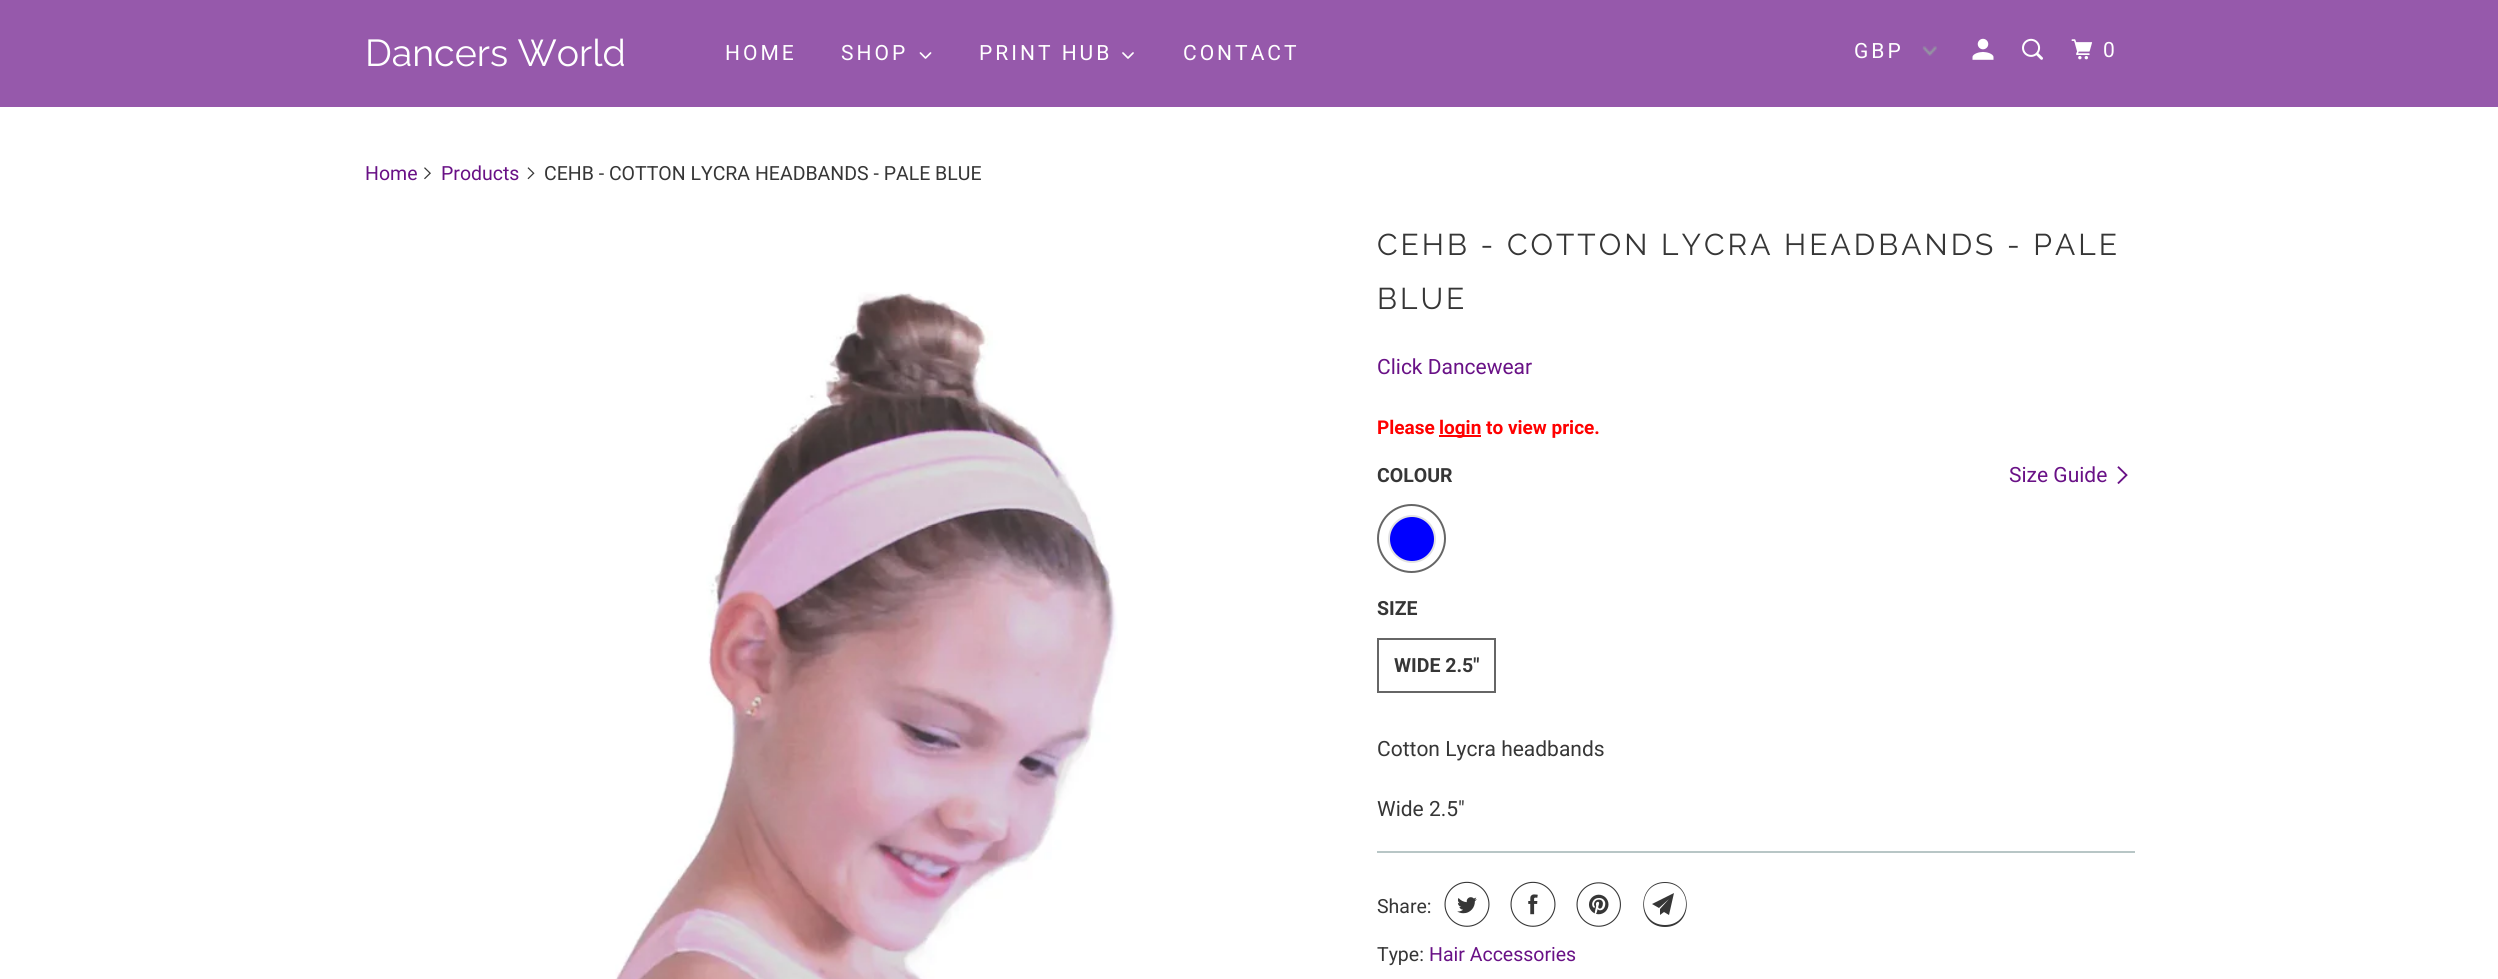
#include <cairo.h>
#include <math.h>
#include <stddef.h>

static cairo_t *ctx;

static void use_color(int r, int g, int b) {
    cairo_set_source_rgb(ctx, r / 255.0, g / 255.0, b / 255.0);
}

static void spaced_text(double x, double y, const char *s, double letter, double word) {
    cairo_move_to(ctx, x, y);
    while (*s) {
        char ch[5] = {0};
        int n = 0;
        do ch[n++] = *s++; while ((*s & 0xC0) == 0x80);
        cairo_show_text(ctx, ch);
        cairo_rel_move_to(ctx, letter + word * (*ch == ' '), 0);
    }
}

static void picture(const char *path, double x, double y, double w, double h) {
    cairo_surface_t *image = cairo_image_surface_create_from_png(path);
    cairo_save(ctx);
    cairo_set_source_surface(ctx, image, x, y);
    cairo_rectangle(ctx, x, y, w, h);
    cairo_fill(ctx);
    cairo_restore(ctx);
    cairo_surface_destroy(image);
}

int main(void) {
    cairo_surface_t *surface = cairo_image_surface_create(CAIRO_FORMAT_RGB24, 2498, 979);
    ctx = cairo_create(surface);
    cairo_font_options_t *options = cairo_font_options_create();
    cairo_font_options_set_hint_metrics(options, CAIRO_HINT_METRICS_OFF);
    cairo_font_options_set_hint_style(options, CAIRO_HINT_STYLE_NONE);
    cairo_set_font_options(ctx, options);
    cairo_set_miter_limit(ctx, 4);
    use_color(255, 255, 255);
    cairo_paint(ctx);
    use_color(150, 89, 171);
    cairo_rectangle(ctx, 0, 0, 2498, 107);
    cairo_fill(ctx);
    cairo_select_font_face(ctx, "Raleway", CAIRO_FONT_SLANT_NORMAL, CAIRO_FONT_WEIGHT_NORMAL);
    cairo_set_font_size(ctx, 37.5);
    use_color(255, 255, 255);
    cairo_move_to(ctx, 365, 66);
    cairo_show_text(ctx, "Dancers World");
    cairo_select_font_face(ctx, "Roboto", CAIRO_FONT_SLANT_NORMAL, CAIRO_FONT_WEIGHT_NORMAL);
    cairo_set_font_size(ctx, 21);
    spaced_text(725, 60, "HOME", 3, 0);
    spaced_text(841, 60, "SHOP", 3, 0);
    picture("img1.png", 919, 52, 13, 7);
    spaced_text(979, 60, "PRINT HUB", 3, 0);
    picture("img2.png", 1122, 52, 12, 7);
    spaced_text(1183, 60, "CONTACT", 3, 0);
    picture("img3.png", 1922, 46, 15, 10);
    spaced_text(1854, 58, "GBP", 3, 0);
    picture("img4.png", 1972, 38, 22, 22);
    picture("img5.png", 2022, 38, 21, 22);
    picture("img6.png", 2071, 39, 22, 21);
    spaced_text(2103, 57, "0", 3, 0);
    cairo_set_font_size(ctx, 19.5);
    use_color(105, 17, 134);
    cairo_move_to(ctx, 365, 180);
    cairo_show_text(ctx, "Home");
    picture("img7.png", 424, 167, 7, 13);
    cairo_move_to(ctx, 441, 180);
    cairo_show_text(ctx, "Products");
    picture("img8.png", 527, 167, 8, 13);
    use_color(54, 54, 54);
    cairo_move_to(ctx, 544, 180);
    cairo_show_text(ctx, "CEHB - COTTON LYCRA HEADBANDS - PALE BLUE");
    picture("img9.png", 615, 292, 503, 687);
    cairo_select_font_face(ctx, "Raleway", CAIRO_FONT_SLANT_NORMAL, CAIRO_FONT_WEIGHT_NORMAL);
    cairo_set_font_size(ctx, 30);
    spaced_text(1377, 255, "CEHB - COTTON LYCRA HEADBANDS - PALE", 3, 0);
    spaced_text(1377, 309, "BLUE", 3, 0);
    cairo_select_font_face(ctx, "Roboto", CAIRO_FONT_SLANT_NORMAL, CAIRO_FONT_WEIGHT_NORMAL);
    cairo_set_font_size(ctx, 21);
    use_color(105, 17, 134);
    cairo_move_to(ctx, 1377, 374);
    cairo_show_text(ctx, "Click Dancewear");
    cairo_select_font_face(ctx, "Roboto", CAIRO_FONT_SLANT_NORMAL, CAIRO_FONT_WEIGHT_BOLD);
    cairo_set_font_size(ctx, 19);
    use_color(255, 0, 0);
    cairo_move_to(ctx, 1377, 434);
    cairo_show_text(ctx, "Please");
    cairo_rectangle(ctx, 1439, 435, 42, 2);
    cairo_fill(ctx);
    cairo_move_to(ctx, 1439, 434);
    cairo_show_text(ctx, "login to view price.");
    cairo_set_font_size(ctx, 19.5);
    use_color(54, 54, 54);
    cairo_move_to(ctx, 1377, 482);
    cairo_show_text(ctx, "COLOUR");
    cairo_new_path(ctx);
    cairo_arc(ctx, 1411.5, 538.5, 33.5, 0, 2 * M_PI);
    use_color(102, 102, 102);
    cairo_stroke(ctx);
    use_color(0, 0, 255);
    cairo_arc(ctx, 1412, 539, 23, 0, 2 * M_PI);
    cairo_fill_preserve(ctx);
    use_color(226, 226, 226);
    cairo_stroke(ctx);
    use_color(54, 54, 54);
    cairo_move_to(ctx, 1377, 615);
    cairo_show_text(ctx, "SIZE");
    cairo_rectangle(ctx, 1378, 639, 117, 53);
    use_color(102, 102, 102);
    cairo_stroke(ctx);
    use_color(54, 54, 54);
    cairo_move_to(ctx, 1394, 672);
    cairo_show_text(ctx, "WIDE 2.5\"");
    cairo_select_font_face(ctx, "Roboto", CAIRO_FONT_SLANT_NORMAL, CAIRO_FONT_WEIGHT_NORMAL);
    cairo_set_font_size(ctx, 21);
    use_color(105, 17, 134);
    cairo_move_to(ctx, 2009, 482);
    cairo_show_text(ctx, "Size Guide");
    picture("img10.png", 2117, 466, 11, 18);
    use_color(54, 54, 54);
    cairo_move_to(ctx, 1377, 756);
    cairo_show_text(ctx, "Cotton Lycra headbands");
    cairo_move_to(ctx, 1377, 816);
    cairo_show_text(ctx, "Wide 2.5\"");
    use_color(184, 198, 198);
    cairo_rectangle(ctx, 1377, 851, 758, 2);
    cairo_fill(ctx);
    cairo_set_font_size(ctx, 19.5);
    use_color(54, 54, 54);
    cairo_move_to(ctx, 1377, 913);
    cairo_show_text(ctx, "Share:");
    picture("img11.png", 1444, 881, 46, 46);
    picture("img12.png", 1510, 881, 46, 46);
    picture("img13.png", 1576, 882, 45, 45);
    cairo_new_path(ctx);
    cairo_move_to(ctx, 1669, 915);
    cairo_line_to(ctx, 1664, 912);
    cairo_line_to(ctx, 1660, 915);
    cairo_line_to(ctx, 1660, 909);
    cairo_line_to(ctx, 1669, 899);
    cairo_line_to(ctx, 1659, 908);
    cairo_line_to(ctx, 1652, 904);
    cairo_line_to(ctx, 1674, 893);
    cairo_close_path(ctx);
    cairo_move_to(ctx, 1665, 883);
    cairo_curve_to(ctx, 1637, 883, 1637, 925, 1665, 925);
    cairo_curve_to(ctx, 1693, 925, 1693, 883, 1665, 883);
    cairo_close_path(ctx);
    cairo_move_to(ctx, 1665, 927);
    cairo_curve_to(ctx, 1636, 927, 1636, 882, 1665, 882);
    cairo_curve_to(ctx, 1694, 882, 1694, 927, 1665, 927);
    cairo_close_path(ctx);
    cairo_fill(ctx);
    cairo_move_to(ctx, 1377, 961);
    cairo_show_text(ctx, "Type:");
    use_color(105, 17, 134);
    cairo_move_to(ctx, 1429, 961);
    cairo_show_text(ctx, "Hair Accessories");
    cairo_surface_write_to_png(surface, "result.png");
    cairo_font_options_destroy(options);
    cairo_destroy(ctx);
    cairo_surface_destroy(surface);
    return 0;
}
